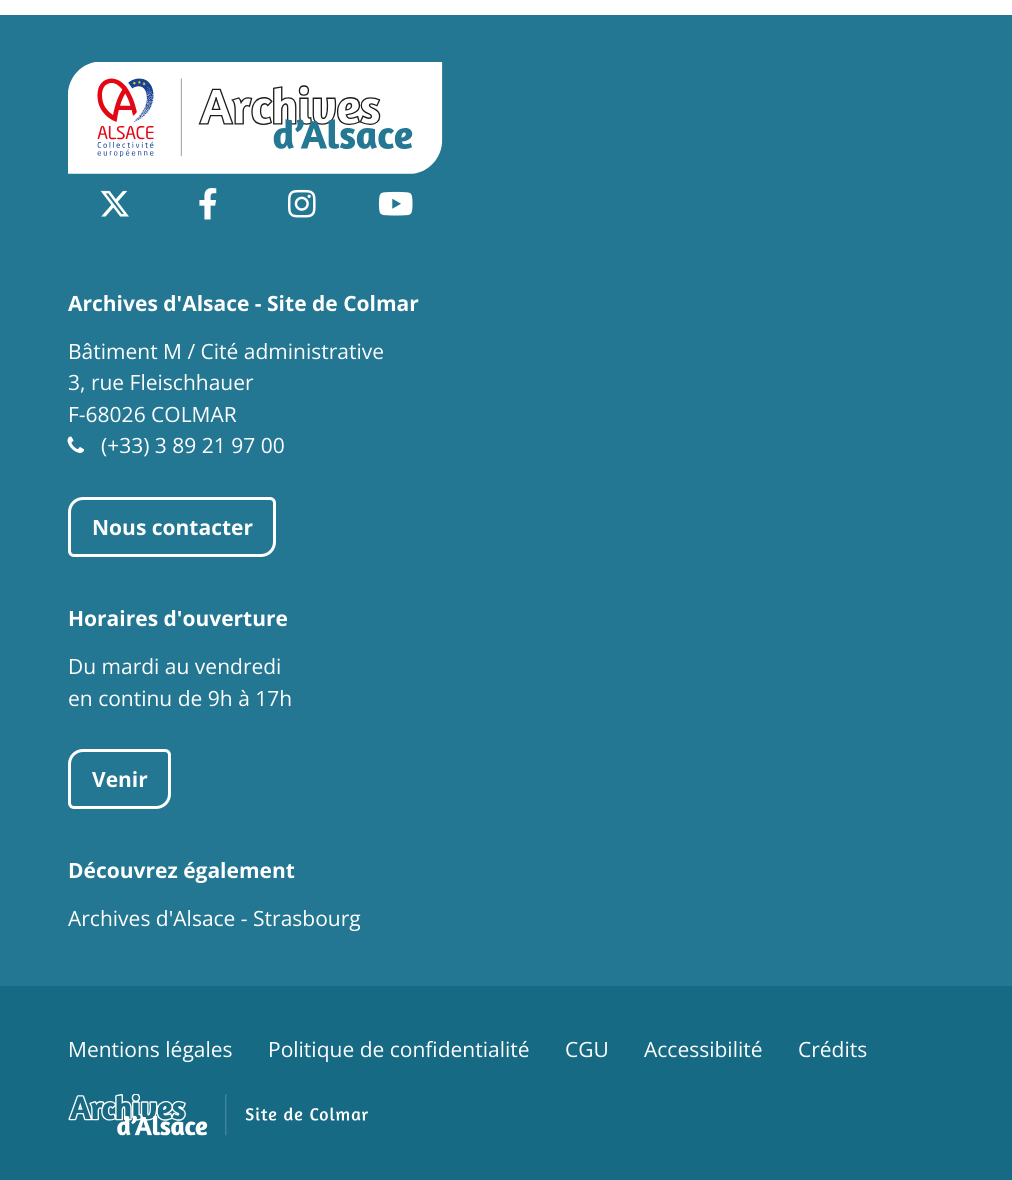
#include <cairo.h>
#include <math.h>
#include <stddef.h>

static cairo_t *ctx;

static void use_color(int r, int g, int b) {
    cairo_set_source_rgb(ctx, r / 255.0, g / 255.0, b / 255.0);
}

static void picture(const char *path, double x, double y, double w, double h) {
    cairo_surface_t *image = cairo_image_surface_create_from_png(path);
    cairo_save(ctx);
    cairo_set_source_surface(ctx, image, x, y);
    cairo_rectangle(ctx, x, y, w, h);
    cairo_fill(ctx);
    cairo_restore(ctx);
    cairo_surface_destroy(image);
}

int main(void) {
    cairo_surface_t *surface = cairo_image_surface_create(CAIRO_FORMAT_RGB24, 1012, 1180);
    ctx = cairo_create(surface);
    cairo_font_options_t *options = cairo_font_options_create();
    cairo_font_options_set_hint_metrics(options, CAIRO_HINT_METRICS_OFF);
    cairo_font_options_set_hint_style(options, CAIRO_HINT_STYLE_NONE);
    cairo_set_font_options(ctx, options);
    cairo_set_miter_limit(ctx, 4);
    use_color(255, 255, 255);
    cairo_paint(ctx);
    use_color(35, 119, 146);
    cairo_rectangle(ctx, 0, 15, 1012, 971);
    cairo_fill(ctx);
    picture("img1.png", 68, 62, 375, 112);
    picture("img2.png", 100, 190, 29, 27);
    picture("img3.png", 199, 188, 18, 32);
    picture("img4.png", 288, 189, 28, 29);
    picture("img5.png", 378, 191, 35, 25);
    cairo_select_font_face(ctx, "Open Sans", CAIRO_FONT_SLANT_NORMAL, CAIRO_FONT_WEIGHT_BOLD);
    cairo_set_font_size(ctx, 21);
    use_color(255, 255, 255);
    cairo_move_to(ctx, 68, 311);
    cairo_show_text(ctx, "Archives d'Alsace - Site de Colmar");
    cairo_select_font_face(ctx, "Open Sans", CAIRO_FONT_SLANT_NORMAL, CAIRO_FONT_WEIGHT_NORMAL);
    cairo_move_to(ctx, 68, 359);
    cairo_show_text(ctx, "Bâtiment M / Cité administrative");
    cairo_move_to(ctx, 68, 390);
    cairo_show_text(ctx, "3, rue Fleischhauer");
    cairo_move_to(ctx, 68, 422);
    cairo_show_text(ctx, "F-68026 COLMAR");
    picture("img6.png", 67, 436, 17, 17);
    cairo_move_to(ctx, 101, 453);
    cairo_show_text(ctx, "(+33) 3 89 21 97 00");
    cairo_new_path(ctx);
    cairo_move_to(ctx, 83, 498.5);
    cairo_line_to(ctx, 270, 498.5);
    cairo_curve_to(ctx, 272.5, 498.5, 274.5, 500.5, 274.5, 503);
    cairo_line_to(ctx, 274.5, 542);
    cairo_curve_to(ctx, 274.5, 549.5, 268.5, 555.5, 261, 555.5);
    cairo_line_to(ctx, 74, 555.5);
    cairo_curve_to(ctx, 71.5, 555.5, 69.5, 553.5, 69.5, 551);
    cairo_line_to(ctx, 69.5, 512);
    cairo_curve_to(ctx, 69.5, 504.5, 75.5, 498.5, 83, 498.5);
    cairo_close_path(ctx);
    cairo_set_line_width(ctx, 3);
    cairo_stroke(ctx);
    cairo_select_font_face(ctx, "Open Sans", CAIRO_FONT_SLANT_NORMAL, CAIRO_FONT_WEIGHT_BOLD);
    cairo_move_to(ctx, 92, 535);
    cairo_show_text(ctx, "Nous contacter");
    cairo_move_to(ctx, 68, 626);
    cairo_show_text(ctx, "Horaires d'ouverture");
    cairo_select_font_face(ctx, "Open Sans", CAIRO_FONT_SLANT_NORMAL, CAIRO_FONT_WEIGHT_NORMAL);
    cairo_move_to(ctx, 68, 674);
    cairo_show_text(ctx, "Du mardi au vendredi");
    cairo_move_to(ctx, 68, 706);
    cairo_show_text(ctx, "en continu de 9h à 17h");
    cairo_new_path(ctx);
    cairo_move_to(ctx, 83, 750.5);
    cairo_line_to(ctx, 165, 750.5);
    cairo_curve_to(ctx, 167.5, 750.5, 169.5, 752.5, 169.5, 755);
    cairo_line_to(ctx, 169.5, 794);
    cairo_curve_to(ctx, 169.5, 801.5, 163.5, 807.5, 156, 807.5);
    cairo_line_to(ctx, 74, 807.5);
    cairo_curve_to(ctx, 71.5, 807.5, 69.5, 805.5, 69.5, 803);
    cairo_line_to(ctx, 69.5, 764);
    cairo_curve_to(ctx, 69.5, 756.5, 75.5, 750.5, 83, 750.5);
    cairo_close_path(ctx);
    cairo_stroke(ctx);
    cairo_select_font_face(ctx, "Open Sans", CAIRO_FONT_SLANT_NORMAL, CAIRO_FONT_WEIGHT_BOLD);
    cairo_move_to(ctx, 92, 787);
    cairo_show_text(ctx, "Venir");
    cairo_move_to(ctx, 68, 878);
    cairo_show_text(ctx, "Découvrez également");
    cairo_select_font_face(ctx, "Open Sans", CAIRO_FONT_SLANT_NORMAL, CAIRO_FONT_WEIGHT_NORMAL);
    cairo_move_to(ctx, 68, 926);
    cairo_show_text(ctx, "Archives d'Alsace - Strasbourg");
    use_color(23, 106, 132);
    cairo_rectangle(ctx, 0, 986, 1012, 194);
    cairo_fill(ctx);
    use_color(255, 255, 255);
    cairo_move_to(ctx, 68, 1057);
    cairo_show_text(ctx, "Mentions légales");
    cairo_move_to(ctx, 268, 1057);
    cairo_show_text(ctx, "Politique de confidentialité");
    cairo_move_to(ctx, 565, 1057);
    cairo_show_text(ctx, "CGU");
    cairo_move_to(ctx, 644, 1057);
    cairo_show_text(ctx, "Accessibilité");
    cairo_move_to(ctx, 798, 1057);
    cairo_show_text(ctx, "Crédits");
    picture("img7.png", 68, 1094, 301, 42);
    cairo_surface_write_to_png(surface, "result.png");
    cairo_font_options_destroy(options);
    cairo_destroy(ctx);
    cairo_surface_destroy(surface);
    return 0;
}
